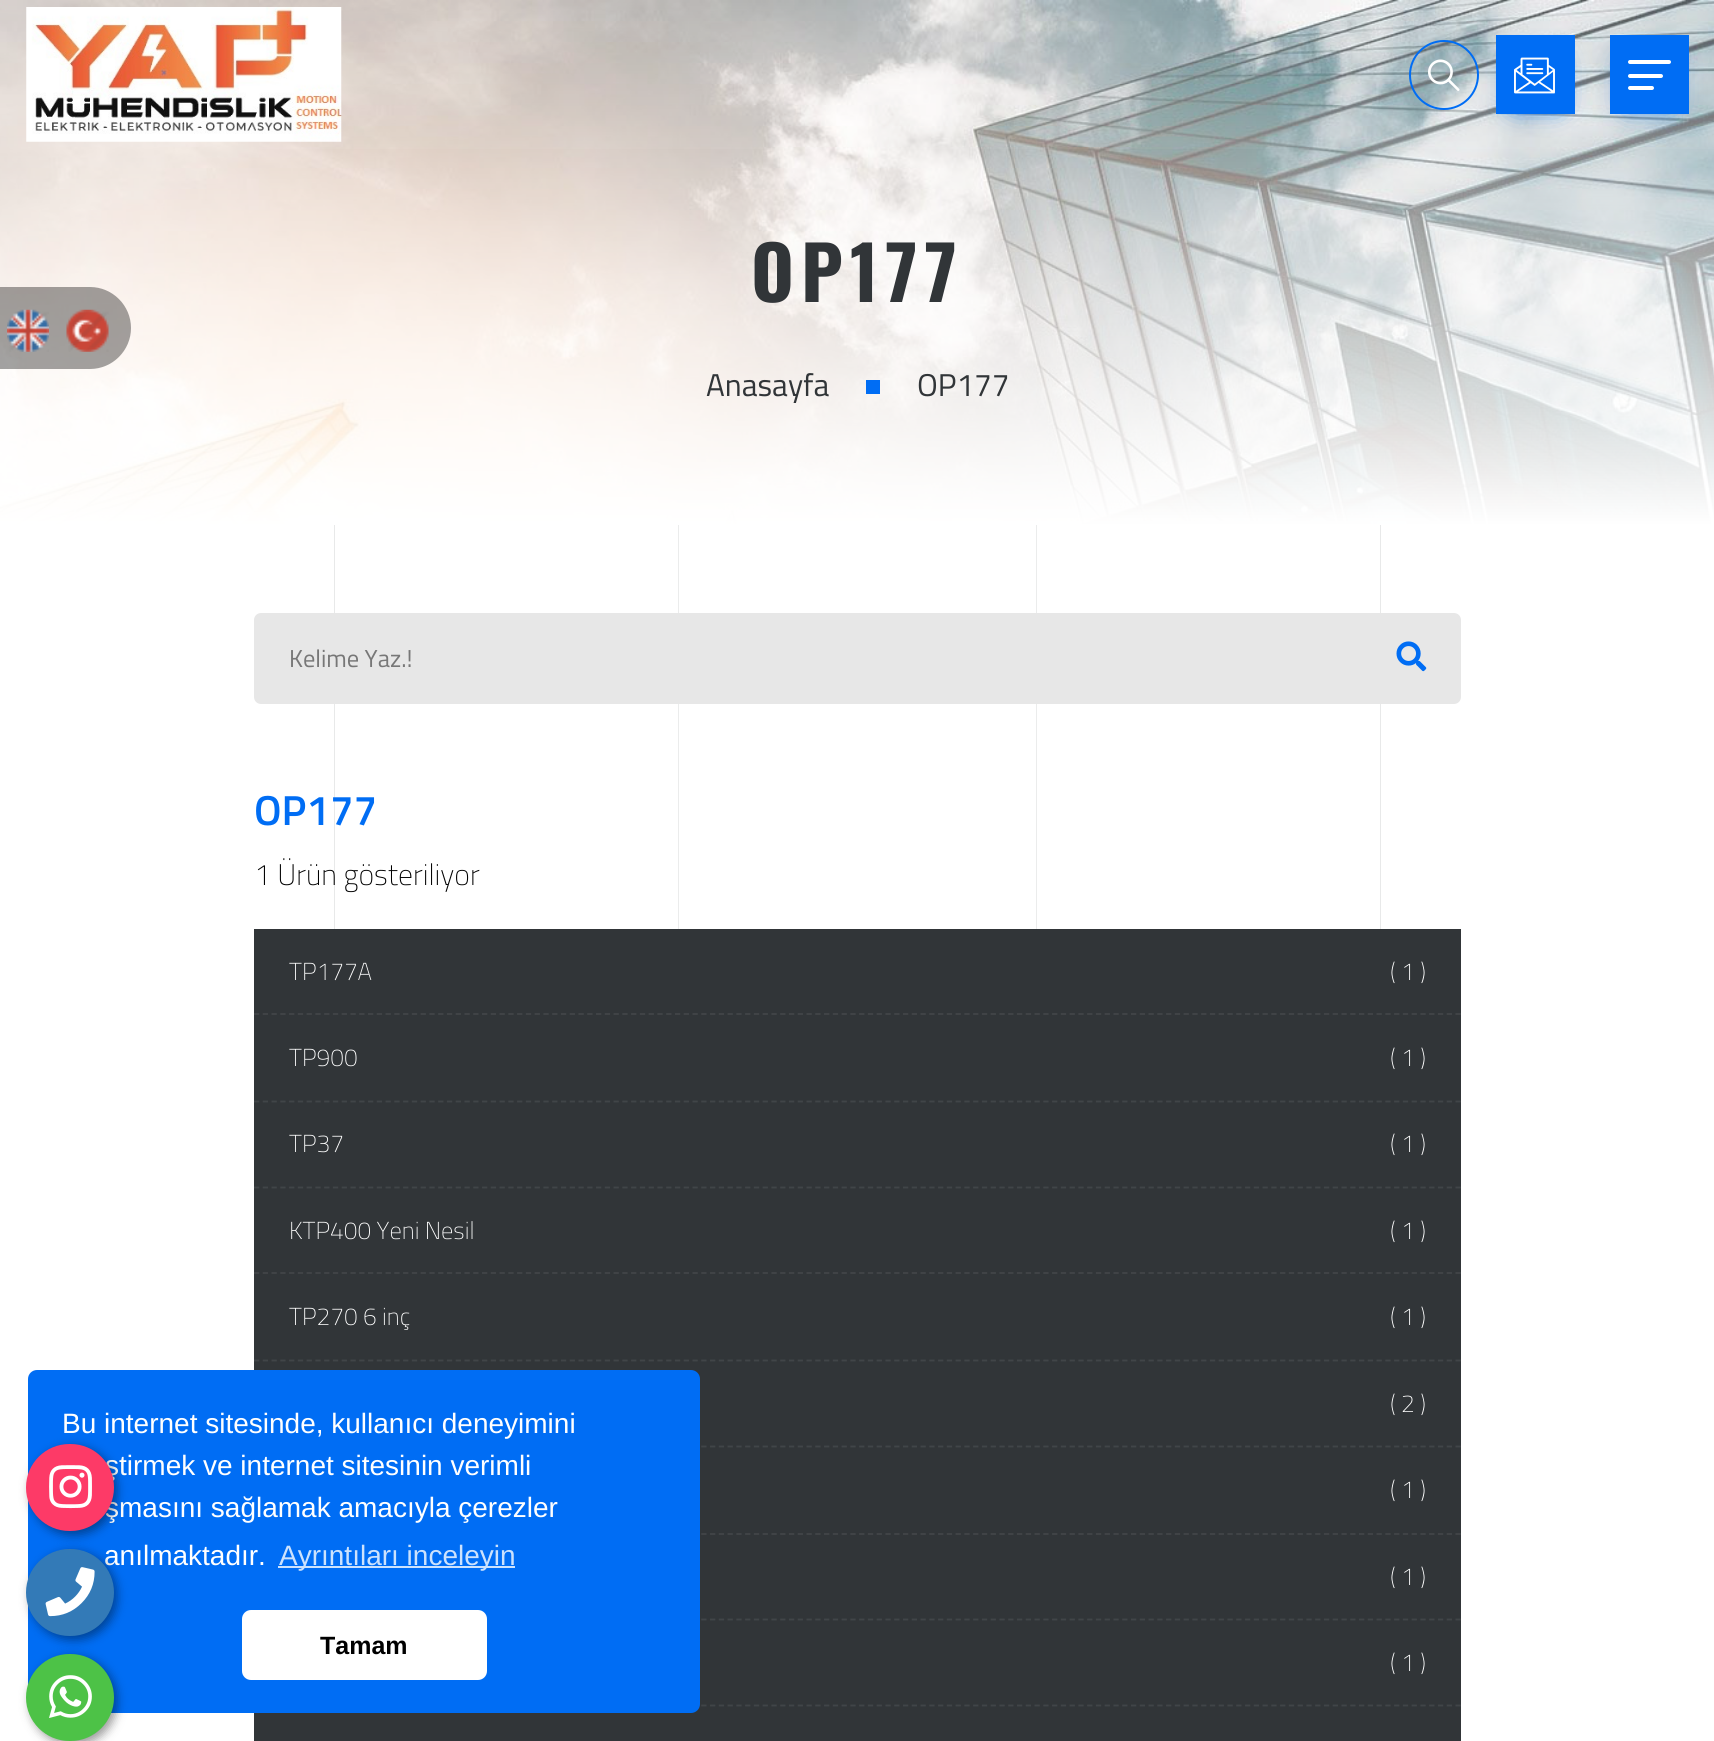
#include <cairo.h>
#include <math.h>
#include <stddef.h>

static cairo_t *ctx;

static void use_color(int r, int g, int b) {
    cairo_set_source_rgb(ctx, r / 255.0, g / 255.0, b / 255.0);
}

static void spaced_text(double x, double y, const char *s, double letter, double word) {
    cairo_move_to(ctx, x, y);
    while (*s) {
        char ch[5] = {0};
        int n = 0;
        do ch[n++] = *s++; while ((*s & 0xC0) == 0x80);
        cairo_show_text(ctx, ch);
        cairo_rel_move_to(ctx, letter + word * (*ch == ' '), 0);
    }
}

static void round_rect(double x, double y, double w, double h, double r) {
    cairo_new_sub_path(ctx);
    cairo_arc(ctx, x + w - r, y + h - r, r, 0, M_PI / 2);
    cairo_arc(ctx, x + r, y + h - r, r, M_PI / 2, M_PI);
    cairo_arc(ctx, x + r, y + r, r, M_PI, 1.5 * M_PI);
    cairo_arc(ctx, x + w - r, y + r, r, 1.5 * M_PI, 2 * M_PI);
    cairo_close_path(ctx);
}

static void shadow(double x, double y, double w, double h, double r, double blur, double alpha) {
    cairo_push_group_with_content(ctx, CAIRO_CONTENT_ALPHA);
    cairo_set_operator(ctx, CAIRO_OPERATOR_SOURCE);
    for (int i = 15; i >= -15 && fmin(w, h) + blur * i / 3 > 0; i -= 2) {
        double e = blur * i / 6;
        cairo_set_source_rgba(ctx, 0, 0, 0, alpha * erfc((i - 1) / 8.5) / 2);
        round_rect(x - e, y - e, w + 2 * e, h + 2 * e, fmax(0, fmin(r + e + blur * .6, fmin(w, h) / 2 + e)));
        cairo_fill(ctx);
    }
    cairo_pattern_t *soft = cairo_pop_group(ctx);
    cairo_mask(ctx, soft);
    cairo_pattern_destroy(soft);
}

static void picture(const char *path, double x, double y, double w, double h) {
    cairo_surface_t *image = cairo_image_surface_create_from_png(path);
    cairo_save(ctx);
    cairo_set_source_surface(ctx, image, x, y);
    cairo_rectangle(ctx, x, y, w, h);
    cairo_fill(ctx);
    cairo_restore(ctx);
    cairo_surface_destroy(image);
}

int main(void) {
    cairo_surface_t *surface = cairo_image_surface_create(CAIRO_FORMAT_RGB24, 1714, 1741);
    ctx = cairo_create(surface);
    cairo_font_options_t *options = cairo_font_options_create();
    cairo_font_options_set_hint_metrics(options, CAIRO_HINT_METRICS_OFF);
    cairo_font_options_set_hint_style(options, CAIRO_HINT_STYLE_NONE);
    cairo_set_font_options(ctx, options);
    cairo_set_miter_limit(ctx, 4);
    use_color(255, 255, 255);
    cairo_paint(ctx);
    picture("img6.png", 0, 0, 1714, 525);
    cairo_set_source_rgba(ctx, 0, 0, 0, 0.36);
    cairo_new_path(ctx);
    cairo_move_to(ctx, -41, 287);
    cairo_line_to(ctx, 90, 287);
    cairo_curve_to(ctx, 112.5, 287, 131, 305.5, 131, 328);
    cairo_curve_to(ctx, 131, 350.5, 112.5, 369, 90, 369);
    cairo_line_to(ctx, -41, 369);
    cairo_close_path(ctx);
    cairo_fill(ctx);
    picture("img1.png", 7, 309, 42, 43);
    picture("img2.png", 66, 309, 43, 43);
    cairo_set_source_rgba(ctx, 1, 1, 1, 0.04);
    cairo_rectangle(ctx, 259, 0, 1455, 149);
    cairo_fill(ctx);
    picture("img3.png", 26, 7, 316, 135);
    cairo_arc(ctx, 1444, 75, 34, 0, 2 * M_PI);
    use_color(0, 109, 244);
    cairo_stroke(ctx);
    picture("img4.png", 1428, 59, 32, 32);
    use_color(0, 109, 244);
    shadow(1514, 61, 44, 44, 0, 13, 1);
    use_color(0, 109, 244);
    cairo_rectangle(ctx, 1496, 35, 79, 79);
    cairo_fill(ctx);
    picture("img5.png", 1514, 57, 41, 37);
    use_color(0, 109, 244);
    shadow(1628, 61, 43, 44, 0, 13, 1);
    use_color(0, 109, 244);
    cairo_rectangle(ctx, 1610, 35, 79, 79);
    cairo_fill(ctx);
    use_color(255, 255, 255);
    round_rect(1628, 60, 43, 4, 2);
    cairo_fill(ctx);
    round_rect(1628, 74, 35, 4, 2);
    cairo_fill(ctx);
    round_rect(1628, 86, 26, 4, 2);
    cairo_fill(ctx);
    cairo_select_font_face(ctx, "Oswald", CAIRO_FONT_SLANT_NORMAL, CAIRO_FONT_WEIGHT_BOLD);
    cairo_set_font_size(ctx, 73.5);
    use_color(49, 53, 56);
    spaced_text(751, 302, "OP177", 7, 0);
    cairo_select_font_face(ctx, "Titillium Web", CAIRO_FONT_SLANT_NORMAL, CAIRO_FONT_WEIGHT_NORMAL);
    cairo_set_font_size(ctx, 31.5);
    cairo_move_to(ctx, 706, 396);
    cairo_show_text(ctx, "Anasayfa");
    use_color(0, 109, 244);
    cairo_rectangle(ctx, 866, 380, 14, 14);
    cairo_fill(ctx);
    use_color(49, 53, 56);
    cairo_move_to(ctx, 917, 396);
    cairo_show_text(ctx, "OP177");
    picture("img7.png", 334, 525, 1047, 404);
    use_color(231, 231, 231);
    round_rect(254, 613, 1207, 91, 7);
    cairo_fill(ctx);
    cairo_set_font_size(ctx, 24.5);
    use_color(119, 119, 119);
    cairo_move_to(ctx, 289, 667);
    cairo_show_text(ctx, "Kelime Yaz.!");
    picture("img8.png", 1396, 641, 31, 31);
    cairo_select_font_face(ctx, "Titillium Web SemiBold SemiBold", CAIRO_FONT_SLANT_NORMAL, CAIRO_FONT_WEIGHT_NORMAL);
    cairo_set_font_size(ctx, 42);
    use_color(0, 109, 244);
    cairo_move_to(ctx, 254, 825);
    cairo_show_text(ctx, "OP177");
    cairo_select_font_face(ctx, "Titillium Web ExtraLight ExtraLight", CAIRO_FONT_SLANT_NORMAL, CAIRO_FONT_WEIGHT_NORMAL);
    cairo_set_font_size(ctx, 29.75);
    use_color(0, 0, 0);
    cairo_move_to(ctx, 254, 885);
    cairo_show_text(ctx, "1 Ürün gösteriliyor");
    use_color(49, 53, 56);
    cairo_rectangle(ctx, 254, 929, 1207, 812);
    cairo_fill(ctx);
    cairo_new_path(ctx);
    cairo_move_to(ctx, 254, 1014);
    cairo_line_to(ctx, 1461, 1014);
    use_color(65, 69, 72);
    cairo_set_line_width(ctx, 1.8);
    cairo_set_dash(ctx, (double[]){5.25, 3.52}, 2, 0);
    cairo_stroke(ctx);
    cairo_set_font_size(ctx, 24.5);
    use_color(255, 255, 255);
    cairo_move_to(ctx, 289, 980);
    cairo_show_text(ctx, "TP177A");
    cairo_move_to(ctx, 1390, 980);
    cairo_show_text(ctx, "( 1 )");
    cairo_new_path(ctx);
    cairo_move_to(ctx, 254, 1101.5);
    cairo_line_to(ctx, 1461, 1101.5);
    use_color(65, 69, 72);
    cairo_stroke(ctx);
    use_color(255, 255, 255);
    cairo_move_to(ctx, 289, 1066);
    cairo_show_text(ctx, "TP900");
    cairo_move_to(ctx, 1390, 1066);
    cairo_show_text(ctx, "( 1 )");
    cairo_new_path(ctx);
    cairo_move_to(ctx, 254, 1187.5);
    cairo_line_to(ctx, 1461, 1187.5);
    use_color(65, 69, 72);
    cairo_stroke(ctx);
    use_color(255, 255, 255);
    cairo_move_to(ctx, 289, 1152);
    cairo_show_text(ctx, "TP37");
    cairo_move_to(ctx, 1390, 1152);
    cairo_show_text(ctx, "( 1 )");
    cairo_new_path(ctx);
    cairo_move_to(ctx, 254, 1273);
    cairo_line_to(ctx, 1461, 1273);
    use_color(65, 69, 72);
    cairo_stroke(ctx);
    use_color(255, 255, 255);
    cairo_move_to(ctx, 289, 1239);
    cairo_show_text(ctx, "KTP400 Yeni Nesil");
    cairo_move_to(ctx, 1390, 1239);
    cairo_show_text(ctx, "( 1 )");
    cairo_new_path(ctx);
    cairo_move_to(ctx, 254, 1360.5);
    cairo_line_to(ctx, 1461, 1360.5);
    use_color(65, 69, 72);
    cairo_stroke(ctx);
    use_color(255, 255, 255);
    cairo_move_to(ctx, 289, 1325);
    cairo_show_text(ctx, "TP270 6 inç");
    cairo_move_to(ctx, 1390, 1325);
    cairo_show_text(ctx, "( 1 )");
    cairo_new_path(ctx);
    cairo_move_to(ctx, 254, 1446.5);
    cairo_line_to(ctx, 1461, 1446.5);
    use_color(65, 69, 72);
    cairo_stroke(ctx);
    use_color(255, 255, 255);
    cairo_move_to(ctx, 1390, 1412);
    cairo_show_text(ctx, "( 2 )");
    cairo_new_path(ctx);
    cairo_move_to(ctx, 254, 1534);
    cairo_line_to(ctx, 1461, 1534);
    use_color(65, 69, 72);
    cairo_stroke(ctx);
    use_color(255, 255, 255);
    cairo_move_to(ctx, 1390, 1498);
    cairo_show_text(ctx, "( 1 )");
    cairo_new_path(ctx);
    cairo_move_to(ctx, 254, 1619.5);
    cairo_line_to(ctx, 1461, 1619.5);
    use_color(65, 69, 72);
    cairo_stroke(ctx);
    use_color(255, 255, 255);
    cairo_move_to(ctx, 1390, 1585);
    cairo_show_text(ctx, "( 1 )");
    cairo_new_path(ctx);
    cairo_move_to(ctx, 254, 1705.5);
    cairo_line_to(ctx, 1461, 1705.5);
    use_color(65, 69, 72);
    cairo_stroke(ctx);
    use_color(255, 255, 255);
    cairo_move_to(ctx, 1390, 1671);
    cairo_show_text(ctx, "( 1 )");
    use_color(0, 109, 244);
    round_rect(28, 1370, 672, 343, 9);
    cairo_fill(ctx);
    cairo_select_font_face(ctx, "Liberation Sans", CAIRO_FONT_SLANT_NORMAL, CAIRO_FONT_WEIGHT_NORMAL);
    cairo_set_font_size(ctx, 28);
    use_color(255, 255, 255);
    cairo_move_to(ctx, 62, 1433);
    cairo_show_text(ctx, "Bu internet sitesinde, kullanıcı deneyimini");
    cairo_move_to(ctx, 105, 1475);
    cairo_show_text(ctx, "ştirmek ve internet sitesinin verimli");
    cairo_move_to(ctx, 105, 1517);
    cairo_show_text(ctx, "şmasını sağlamak amacıyla çerezler");
    cairo_move_to(ctx, 104, 1565);
    cairo_show_text(ctx, "anılmaktadır.");
    use_color(204, 226, 253);
    cairo_rectangle(ctx, 278, 1566, 237, 2);
    cairo_fill(ctx);
    cairo_move_to(ctx, 279, 1565);
    cairo_show_text(ctx, "Ayrıntıları inceleyin");
    use_color(255, 255, 255);
    round_rect(242, 1610, 245, 70, 9);
    cairo_fill(ctx);
    cairo_select_font_face(ctx, "Liberation Sans", CAIRO_FONT_SLANT_NORMAL, CAIRO_FONT_WEIGHT_BOLD);
    cairo_set_font_size(ctx, 25);
    use_color(0, 0, 0);
    cairo_move_to(ctx, 320, 1654);
    cairo_show_text(ctx, "Tamam");
    use_color(0, 0, 0);
    shadow(30, 1447, 87, 88, 43.5, 5, 0.4);
    use_color(253, 58, 103);
    round_rect(26, 1444, 88, 87, 43.5);
    cairo_fill(ctx);
    picture("img9.png", 49, 1465, 43, 44);
    use_color(0, 0, 0);
    shadow(30, 1552, 87, 88, 43.5, 5, 0.4);
    use_color(51, 122, 183);
    round_rect(26, 1549, 88, 87, 43.5);
    cairo_fill(ctx);
    picture("img10.png", 45, 1567, 50, 50);
    use_color(0, 0, 0);
    shadow(30, 1657, 87, 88, 43.5, 5, 0.4);
    use_color(77, 194, 71);
    round_rect(26, 1654, 88, 87, 43.5);
    cairo_fill(ctx);
    picture("img11.png", 49, 1675, 43, 43);
    cairo_surface_write_to_png(surface, "result.png");
    cairo_font_options_destroy(options);
    cairo_destroy(ctx);
    cairo_surface_destroy(surface);
    return 0;
}
